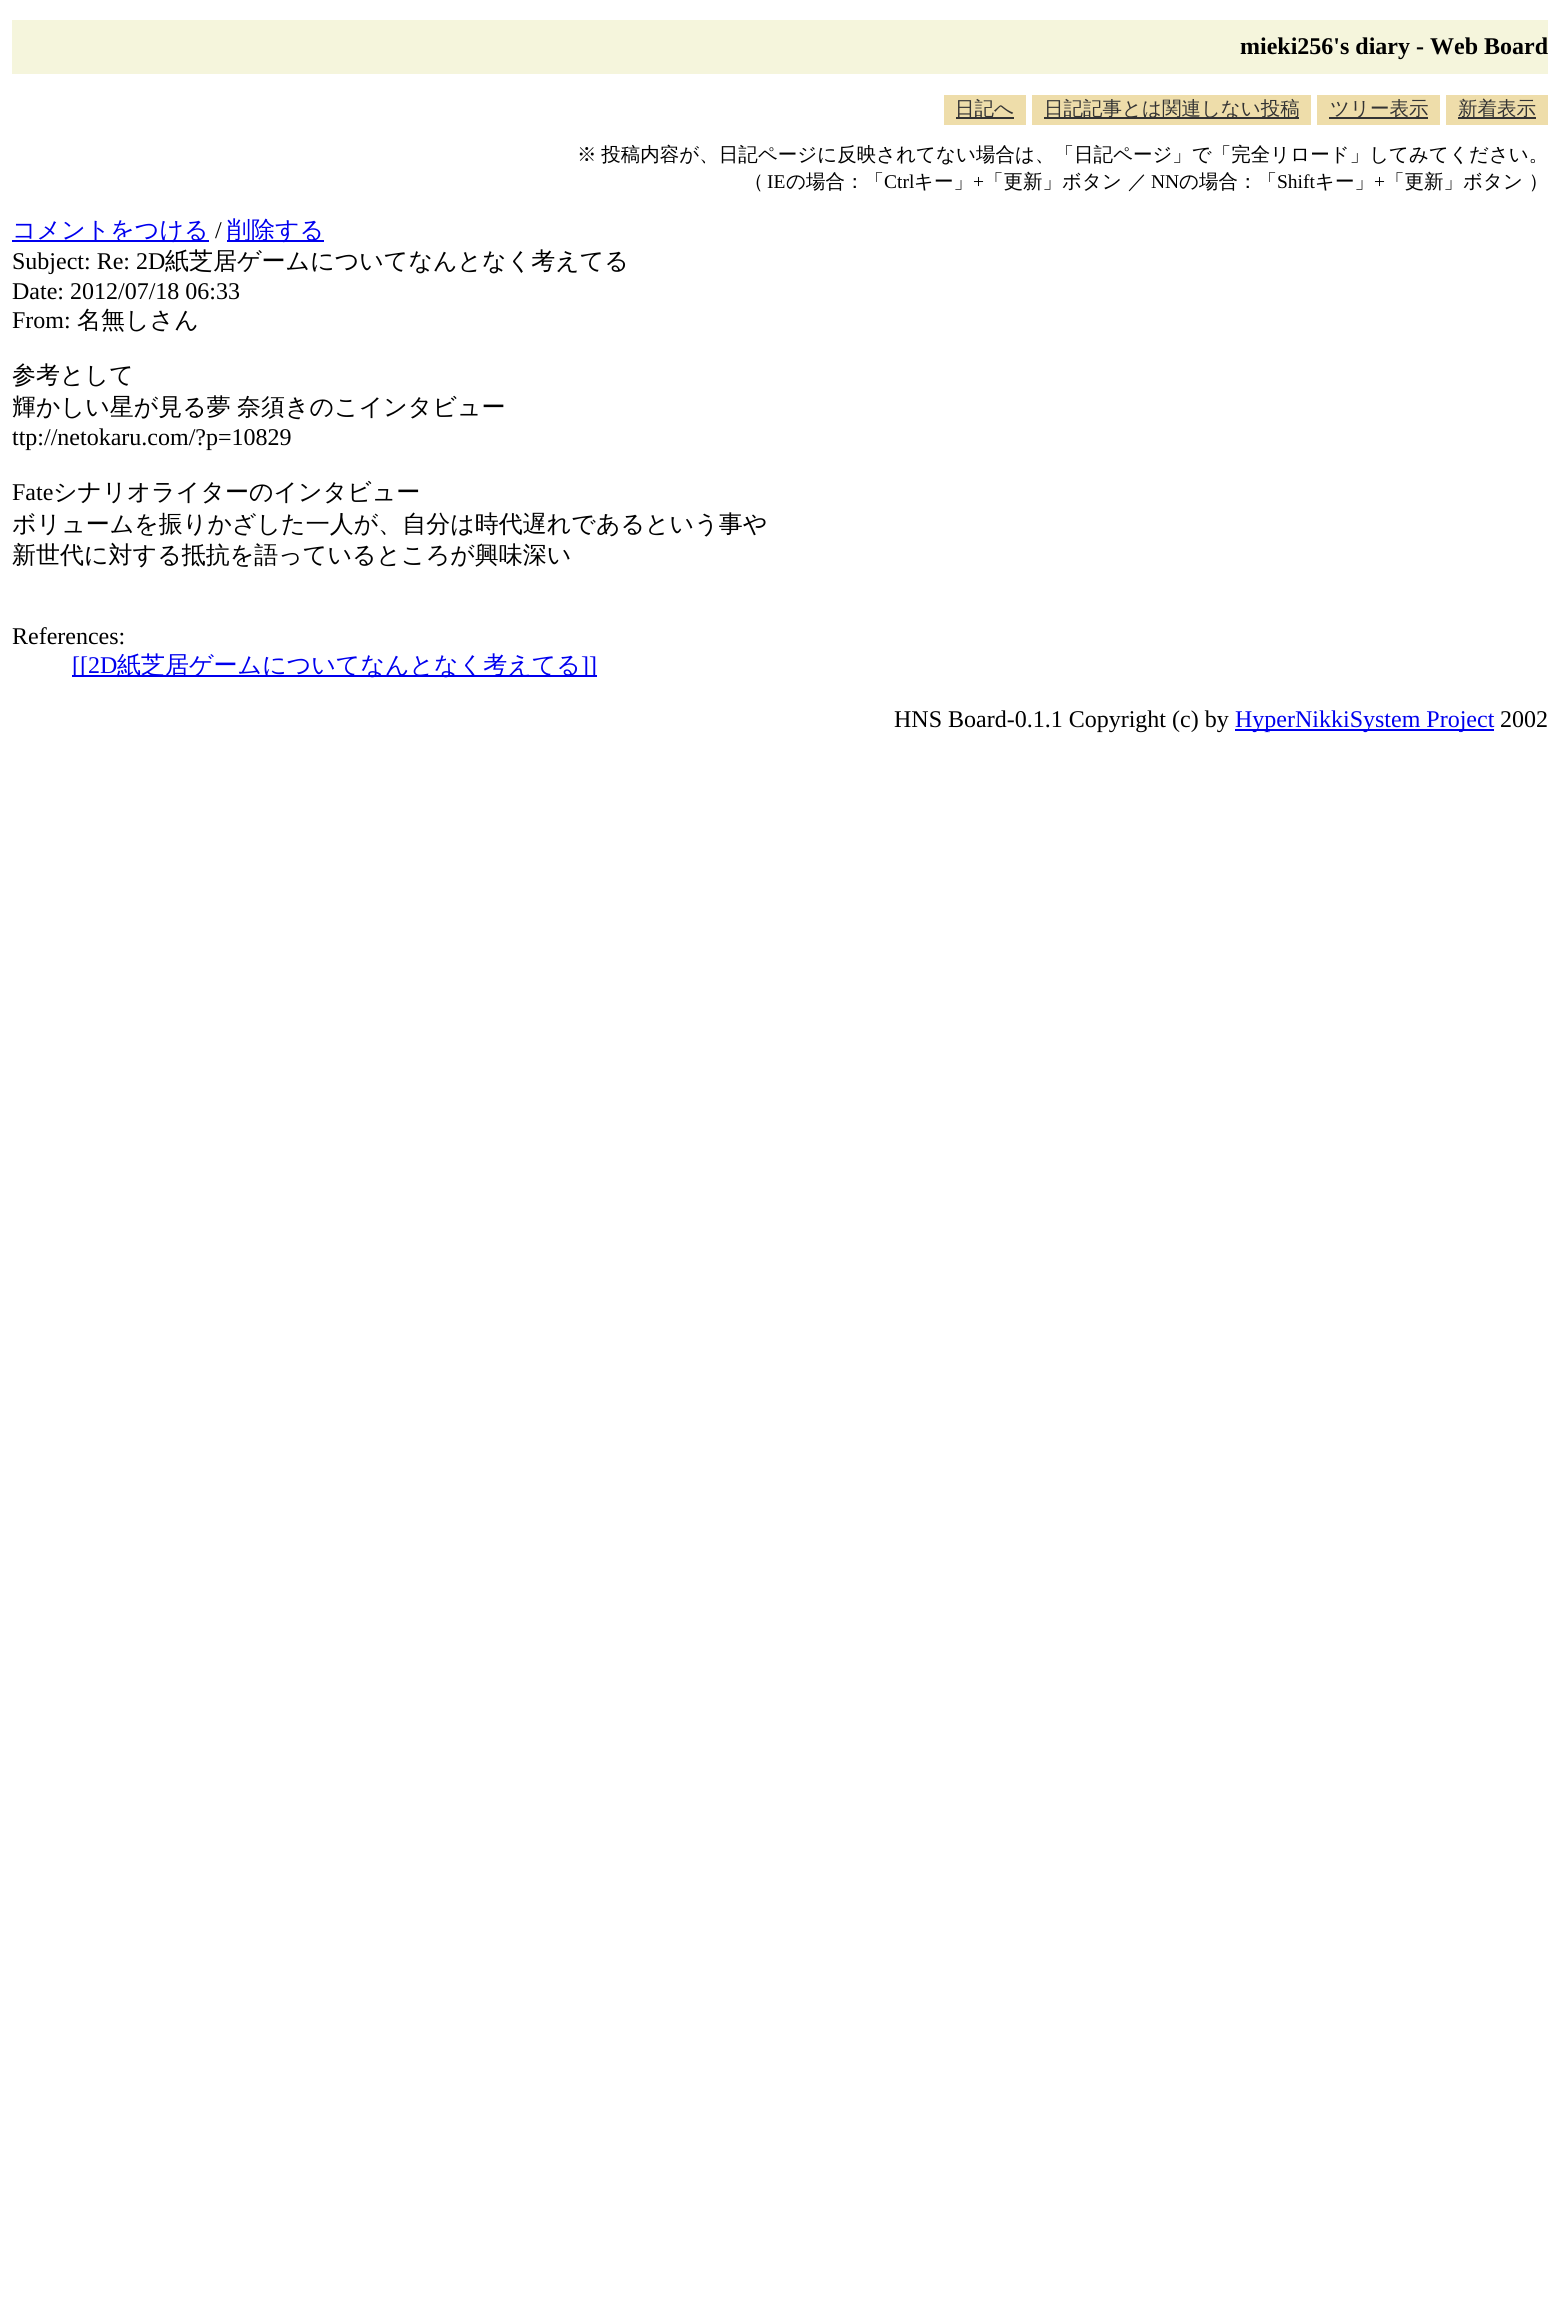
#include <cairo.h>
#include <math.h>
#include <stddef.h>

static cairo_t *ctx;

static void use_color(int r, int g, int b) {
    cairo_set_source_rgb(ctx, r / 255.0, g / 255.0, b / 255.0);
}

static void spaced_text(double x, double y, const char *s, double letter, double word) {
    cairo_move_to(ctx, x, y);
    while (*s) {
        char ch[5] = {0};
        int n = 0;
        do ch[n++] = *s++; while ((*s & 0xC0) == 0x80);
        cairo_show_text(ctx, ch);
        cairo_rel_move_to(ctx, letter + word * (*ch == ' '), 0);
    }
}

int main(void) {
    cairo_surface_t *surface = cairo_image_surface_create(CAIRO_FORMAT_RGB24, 1559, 2304);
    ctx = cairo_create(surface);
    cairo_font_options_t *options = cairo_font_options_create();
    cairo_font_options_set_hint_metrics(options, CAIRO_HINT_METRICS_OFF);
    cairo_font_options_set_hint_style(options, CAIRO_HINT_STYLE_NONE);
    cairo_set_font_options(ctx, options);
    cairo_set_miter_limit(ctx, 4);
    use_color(255, 255, 255);
    cairo_paint(ctx);
    use_color(245, 245, 220);
    cairo_rectangle(ctx, 12, 20, 1536, 54);
    cairo_fill(ctx);
    cairo_select_font_face(ctx, "Liberation Serif", CAIRO_FONT_SLANT_NORMAL, CAIRO_FONT_WEIGHT_BOLD);
    cairo_set_font_size(ctx, 24);
    use_color(0, 0, 0);
    cairo_move_to(ctx, 1240, 54);
    cairo_show_text(ctx, "mieki256's diary - Web Board");
    use_color(238, 221, 170);
    cairo_rectangle(ctx, 944, 95, 82, 30);
    cairo_fill(ctx);
    use_color(51, 51, 51);
    cairo_rectangle(ctx, 956, 117, 58, 2);
    cairo_fill(ctx);
    cairo_select_font_face(ctx, "WenQuanYi Zen Hei Medium", CAIRO_FONT_SLANT_NORMAL, CAIRO_FONT_WEIGHT_NORMAL);
    cairo_set_font_size(ctx, 19.5);
    cairo_move_to(ctx, 955, 115);
    cairo_show_text(ctx, "日記へ");
    use_color(238, 221, 170);
    cairo_rectangle(ctx, 1032, 95, 279, 30);
    cairo_fill(ctx);
    use_color(51, 51, 51);
    cairo_rectangle(ctx, 1044, 117, 255, 2);
    cairo_fill(ctx);
    cairo_move_to(ctx, 1044, 115);
    cairo_show_text(ctx, "日記記事とは関連しない投稿");
    use_color(238, 221, 170);
    cairo_rectangle(ctx, 1317, 95, 123, 30);
    cairo_fill(ctx);
    use_color(51, 51, 51);
    cairo_rectangle(ctx, 1329, 117, 99, 2);
    cairo_fill(ctx);
    cairo_move_to(ctx, 1330, 115);
    cairo_show_text(ctx, "ツリー表示");
    use_color(238, 221, 170);
    cairo_rectangle(ctx, 1446, 95, 102, 30);
    cairo_fill(ctx);
    use_color(51, 51, 51);
    cairo_rectangle(ctx, 1458, 117, 78, 2);
    cairo_fill(ctx);
    cairo_move_to(ctx, 1458, 115);
    cairo_show_text(ctx, "新着表示");
    use_color(0, 0, 0);
    spaced_text(577, 161, "※ 投稿内容が、日記ページに反映されてない場合は、「日記ページ」で「完全リロード」してみてください。", 0, -1);
    cairo_move_to(ctx, 744, 188);
    cairo_show_text(ctx, "（");
    cairo_select_font_face(ctx, "Liberation Serif", CAIRO_FONT_SLANT_NORMAL, CAIRO_FONT_WEIGHT_NORMAL);
    cairo_move_to(ctx, 767, 188);
    cairo_show_text(ctx, "IE");
    cairo_select_font_face(ctx, "WenQuanYi Zen Hei Medium", CAIRO_FONT_SLANT_NORMAL, CAIRO_FONT_WEIGHT_NORMAL);
    cairo_move_to(ctx, 786, 188);
    cairo_show_text(ctx, "の場合：「");
    cairo_select_font_face(ctx, "Liberation Serif", CAIRO_FONT_SLANT_NORMAL, CAIRO_FONT_WEIGHT_NORMAL);
    cairo_move_to(ctx, 884, 188);
    cairo_show_text(ctx, "Ctrl");
    cairo_select_font_face(ctx, "WenQuanYi Zen Hei Medium", CAIRO_FONT_SLANT_NORMAL, CAIRO_FONT_WEIGHT_NORMAL);
    cairo_move_to(ctx, 914, 188);
    cairo_show_text(ctx, "キー」");
    cairo_select_font_face(ctx, "Liberation Serif", CAIRO_FONT_SLANT_NORMAL, CAIRO_FONT_WEIGHT_NORMAL);
    cairo_move_to(ctx, 973, 188);
    cairo_show_text(ctx, "+");
    cairo_select_font_face(ctx, "WenQuanYi Zen Hei Medium", CAIRO_FONT_SLANT_NORMAL, CAIRO_FONT_WEIGHT_NORMAL);
    cairo_move_to(ctx, 984, 188);
    cairo_show_text(ctx, "「更新」ボタン ／");
    cairo_select_font_face(ctx, "Liberation Serif", CAIRO_FONT_SLANT_NORMAL, CAIRO_FONT_WEIGHT_NORMAL);
    cairo_move_to(ctx, 1151, 188);
    cairo_show_text(ctx, "NN");
    cairo_select_font_face(ctx, "WenQuanYi Zen Hei Medium", CAIRO_FONT_SLANT_NORMAL, CAIRO_FONT_WEIGHT_NORMAL);
    cairo_move_to(ctx, 1179, 188);
    cairo_show_text(ctx, "の場合：「");
    cairo_select_font_face(ctx, "Liberation Serif", CAIRO_FONT_SLANT_NORMAL, CAIRO_FONT_WEIGHT_NORMAL);
    cairo_move_to(ctx, 1277, 188);
    cairo_show_text(ctx, "Shift");
    cairo_select_font_face(ctx, "WenQuanYi Zen Hei Medium", CAIRO_FONT_SLANT_NORMAL, CAIRO_FONT_WEIGHT_NORMAL);
    cairo_move_to(ctx, 1315, 188);
    cairo_show_text(ctx, "キー」");
    cairo_select_font_face(ctx, "Liberation Serif", CAIRO_FONT_SLANT_NORMAL, CAIRO_FONT_WEIGHT_NORMAL);
    cairo_move_to(ctx, 1374, 188);
    cairo_show_text(ctx, "+");
    cairo_select_font_face(ctx, "WenQuanYi Zen Hei Medium", CAIRO_FONT_SLANT_NORMAL, CAIRO_FONT_WEIGHT_NORMAL);
    cairo_move_to(ctx, 1385, 188);
    cairo_show_text(ctx, "「更新」ボタン ）");
    use_color(0, 0, 238);
    cairo_rectangle(ctx, 12, 240, 197, 2);
    cairo_fill(ctx);
    cairo_set_font_size(ctx, 24);
    cairo_move_to(ctx, 12, 238);
    cairo_show_text(ctx, "コメントをつける");
    cairo_select_font_face(ctx, "Liberation Serif", CAIRO_FONT_SLANT_NORMAL, CAIRO_FONT_WEIGHT_NORMAL);
    use_color(0, 0, 0);
    cairo_move_to(ctx, 215, 238);
    cairo_show_text(ctx, "/");
    use_color(0, 0, 238);
    cairo_rectangle(ctx, 227, 240, 97, 2);
    cairo_fill(ctx);
    cairo_select_font_face(ctx, "WenQuanYi Zen Hei Medium", CAIRO_FONT_SLANT_NORMAL, CAIRO_FONT_WEIGHT_NORMAL);
    cairo_move_to(ctx, 227, 238);
    cairo_show_text(ctx, "削除する");
    cairo_select_font_face(ctx, "Liberation Serif", CAIRO_FONT_SLANT_NORMAL, CAIRO_FONT_WEIGHT_NORMAL);
    use_color(0, 0, 0);
    cairo_move_to(ctx, 12, 269);
    cairo_show_text(ctx, "Subject: Re: 2D");
    cairo_select_font_face(ctx, "WenQuanYi Zen Hei Medium", CAIRO_FONT_SLANT_NORMAL, CAIRO_FONT_WEIGHT_NORMAL);
    cairo_move_to(ctx, 165, 269);
    cairo_show_text(ctx, "紙芝居ゲームについてなんとなく考えてる");
    cairo_select_font_face(ctx, "Liberation Serif", CAIRO_FONT_SLANT_NORMAL, CAIRO_FONT_WEIGHT_NORMAL);
    cairo_move_to(ctx, 12, 299);
    cairo_show_text(ctx, "Date: 2012/07/18 06:33");
    cairo_move_to(ctx, 12, 328);
    cairo_show_text(ctx, "From:");
    cairo_select_font_face(ctx, "WenQuanYi Zen Hei Medium", CAIRO_FONT_SLANT_NORMAL, CAIRO_FONT_WEIGHT_NORMAL);
    cairo_move_to(ctx, 77, 328);
    cairo_show_text(ctx, "名無しさん");
    cairo_move_to(ctx, 12, 383);
    cairo_show_text(ctx, "参考として");
    spaced_text(12, 415, "輝かしい星が見る夢 奈須きのこインタビュー", 0, -1);
    cairo_select_font_face(ctx, "Liberation Serif", CAIRO_FONT_SLANT_NORMAL, CAIRO_FONT_WEIGHT_NORMAL);
    cairo_move_to(ctx, 12, 445);
    cairo_show_text(ctx, "ttp://netokaru.com/?p=10829");
    cairo_move_to(ctx, 12, 500);
    cairo_show_text(ctx, "Fate");
    cairo_select_font_face(ctx, "WenQuanYi Zen Hei Medium", CAIRO_FONT_SLANT_NORMAL, CAIRO_FONT_WEIGHT_NORMAL);
    cairo_move_to(ctx, 53, 500);
    cairo_show_text(ctx, "シナリオライターのインタビュー");
    cairo_move_to(ctx, 12, 532);
    cairo_show_text(ctx, "ボリュームを振りかざした一人が、自分は時代遅れであるという事や");
    cairo_move_to(ctx, 12, 563);
    cairo_show_text(ctx, "新世代に対する抵抗を語っているところが興味深い");
    cairo_select_font_face(ctx, "Liberation Serif", CAIRO_FONT_SLANT_NORMAL, CAIRO_FONT_WEIGHT_NORMAL);
    cairo_move_to(ctx, 12, 644);
    cairo_show_text(ctx, "References:");
    use_color(0, 0, 238);
    cairo_rectangle(ctx, 72, 675, 525, 2);
    cairo_fill(ctx);
    cairo_move_to(ctx, 72, 673);
    cairo_show_text(ctx, "[[2D");
    cairo_select_font_face(ctx, "WenQuanYi Zen Hei Medium", CAIRO_FONT_SLANT_NORMAL, CAIRO_FONT_WEIGHT_NORMAL);
    cairo_move_to(ctx, 117, 673);
    cairo_show_text(ctx, "紙芝居ゲームについてなんとなく考えてる");
    cairo_select_font_face(ctx, "Liberation Serif", CAIRO_FONT_SLANT_NORMAL, CAIRO_FONT_WEIGHT_NORMAL);
    cairo_move_to(ctx, 581, 673);
    cairo_show_text(ctx, "]]");
    use_color(0, 0, 0);
    cairo_move_to(ctx, 894, 727);
    cairo_show_text(ctx, "HNS Board-0.1.1 Copyright (c) by");
    use_color(0, 0, 238);
    cairo_rectangle(ctx, 1235, 729, 259, 2);
    cairo_fill(ctx);
    cairo_move_to(ctx, 1235, 727);
    cairo_show_text(ctx, "HyperNikkiSystem Project");
    use_color(0, 0, 0);
    cairo_move_to(ctx, 1500, 727);
    cairo_show_text(ctx, "2002");
    cairo_surface_write_to_png(surface, "result.png");
    cairo_font_options_destroy(options);
    cairo_destroy(ctx);
    cairo_surface_destroy(surface);
    return 0;
}
